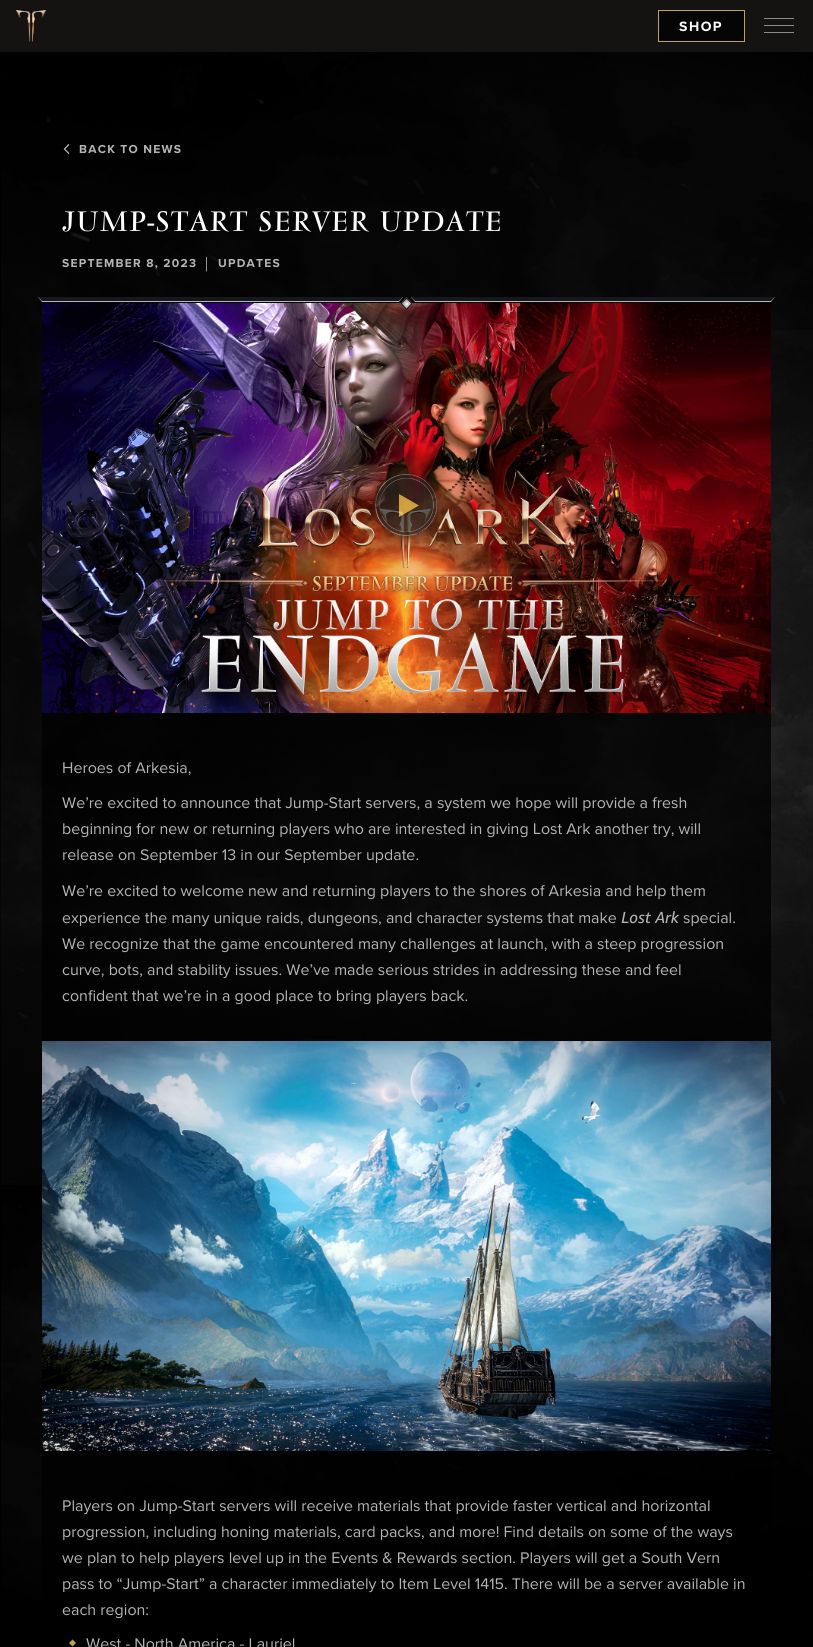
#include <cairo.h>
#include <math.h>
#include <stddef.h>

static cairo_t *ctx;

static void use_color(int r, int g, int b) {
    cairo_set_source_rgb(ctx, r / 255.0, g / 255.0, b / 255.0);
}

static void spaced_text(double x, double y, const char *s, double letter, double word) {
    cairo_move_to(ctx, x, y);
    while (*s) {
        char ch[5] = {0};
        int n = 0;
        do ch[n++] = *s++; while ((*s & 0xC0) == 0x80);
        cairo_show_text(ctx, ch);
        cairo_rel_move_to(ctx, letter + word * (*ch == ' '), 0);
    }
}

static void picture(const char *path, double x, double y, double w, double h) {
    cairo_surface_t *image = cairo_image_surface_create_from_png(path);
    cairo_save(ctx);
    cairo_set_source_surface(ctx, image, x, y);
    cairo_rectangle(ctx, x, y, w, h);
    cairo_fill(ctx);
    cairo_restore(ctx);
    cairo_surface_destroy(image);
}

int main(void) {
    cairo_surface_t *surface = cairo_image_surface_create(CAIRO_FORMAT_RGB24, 813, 1647);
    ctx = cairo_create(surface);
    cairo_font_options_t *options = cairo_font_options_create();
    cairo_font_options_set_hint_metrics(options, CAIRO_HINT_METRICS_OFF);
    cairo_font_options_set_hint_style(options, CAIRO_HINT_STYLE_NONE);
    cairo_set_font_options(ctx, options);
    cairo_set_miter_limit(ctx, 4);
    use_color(0, 0, 0);
    cairo_paint(ctx);
    use_color(20, 19, 18);
    cairo_rectangle(ctx, 0, 0, 813, 52);
    cairo_fill(ctx);
    picture("img1.png", 16, 10, 30, 32);
    use_color(5, 5, 5);
    cairo_rectangle(ctx, 658.5, 10.5, 86, 31);
    cairo_fill_preserve(ctx);
    use_color(191, 162, 81);
    cairo_set_line_width(ctx, 1);
    cairo_stroke(ctx);
    cairo_select_font_face(ctx, "Proxima Nova", CAIRO_FONT_SLANT_NORMAL, CAIRO_FONT_WEIGHT_BOLD);
    cairo_set_font_size(ctx, 14);
    use_color(255, 255, 255);
    spaced_text(679, 31, "SHOP", 1.5, 0);
    use_color(139, 138, 138);
    cairo_rectangle(ctx, 764, 18, 30, 1);
    cairo_fill(ctx);
    cairo_rectangle(ctx, 764, 25, 30, 1);
    cairo_fill(ctx);
    cairo_rectangle(ctx, 764, 32, 30, 1);
    cairo_fill(ctx);
    picture("img8.png", 0, 330, 813, 855);
    picture("img2.png", 1, 52, 812, 810);
    picture("img3.png", 63, 144, 7, 10);
    cairo_set_font_size(ctx, 12);
    use_color(181, 181, 181);
    spaced_text(79, 153, "BACK TO NEWS", 1.25, 0);
    cairo_select_font_face(ctx, "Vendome", CAIRO_FONT_SLANT_NORMAL, CAIRO_FONT_WEIGHT_NORMAL);
    cairo_set_font_size(ctx, 29.4);
    use_color(255, 255, 255);
    spaced_text(62, 231, "JUMP-START SERVER UPDATE", 0.9, 0);
    cairo_select_font_face(ctx, "Proxima Nova", CAIRO_FONT_SLANT_NORMAL, CAIRO_FONT_WEIGHT_BOLD);
    cairo_set_font_size(ctx, 12);
    use_color(181, 181, 181);
    spaced_text(62, 267, "SEPTEMBER 8, 2023", 1.25, 0);
    cairo_select_font_face(ctx, "Liberation Serif", CAIRO_FONT_SLANT_NORMAL, CAIRO_FONT_WEIGHT_NORMAL);
    cairo_set_font_size(ctx, 16);
    cairo_move_to(ctx, 205, 268);
    cairo_show_text(ctx, "|");
    cairo_select_font_face(ctx, "Proxima Nova", CAIRO_FONT_SLANT_NORMAL, CAIRO_FONT_WEIGHT_BOLD);
    cairo_set_font_size(ctx, 12);
    spaced_text(218, 267, "UPDATES", 1.25, 0);
    picture("img9.png", 1, 785, 812, 815);
    cairo_set_source_rgba(ctx, 0, 0, 0, 0.75);
    cairo_rectangle(ctx, 42, 713, 729, 887);
    cairo_fill(ctx);
    picture("img5.png", 42, 303, 729, 410);
    picture("img4.png", 400, 297, 13, 13);
    cairo_new_path(ctx);
    cairo_move_to(ctx, 406.5, 298);
    cairo_line_to(ctx, 412, 303.5);
    cairo_line_to(ctx, 406.5, 309.5);
    cairo_line_to(ctx, 401, 303.5);
    cairo_close_path(ctx);
    use_color(20, 19, 18);
    cairo_stroke(ctx);
    use_color(181, 181, 181);
    cairo_new_path(ctx);
    cairo_move_to(ctx, 38, 297);
    cairo_line_to(ctx, 403, 297);
    cairo_line_to(ctx, 399, 302);
    cairo_line_to(ctx, 42, 302);
    cairo_close_path(ctx);
    cairo_fill(ctx);
    use_color(23, 24, 29);
    cairo_new_path(ctx);
    cairo_move_to(ctx, 38, 297);
    cairo_line_to(ctx, 403, 297);
    cairo_line_to(ctx, 399, 301);
    cairo_line_to(ctx, 42, 301);
    cairo_close_path(ctx);
    cairo_fill(ctx);
    use_color(181, 181, 181);
    cairo_new_path(ctx);
    cairo_move_to(ctx, 411, 297);
    cairo_line_to(ctx, 775, 297);
    cairo_line_to(ctx, 771, 302);
    cairo_line_to(ctx, 415, 302);
    cairo_close_path(ctx);
    cairo_fill(ctx);
    use_color(23, 24, 29);
    cairo_new_path(ctx);
    cairo_move_to(ctx, 411, 297);
    cairo_line_to(ctx, 775, 297);
    cairo_line_to(ctx, 771, 301);
    cairo_line_to(ctx, 415, 301);
    cairo_close_path(ctx);
    cairo_fill(ctx);
    picture("img6.png", 370, 473, 73, 73);
    cairo_select_font_face(ctx, "Proxima Nova", CAIRO_FONT_SLANT_NORMAL, CAIRO_FONT_WEIGHT_NORMAL);
    cairo_set_font_size(ctx, 16);
    use_color(181, 181, 181);
    cairo_move_to(ctx, 62, 773);
    cairo_show_text(ctx, "Heroes of Arkesia,");
    cairo_move_to(ctx, 62, 808);
    cairo_show_text(ctx, "We’re excited to announce that Jump-Start servers, a system we hope will provide a fresh");
    cairo_move_to(ctx, 62, 834);
    cairo_show_text(ctx, "beginning for new or returning players who are interested in giving Lost Ark another try, will");
    cairo_move_to(ctx, 62, 860);
    cairo_show_text(ctx, "release on September 13 in our September update.");
    cairo_move_to(ctx, 62, 896);
    cairo_show_text(ctx, "We’re excited to welcome new and returning players to the shores of Arkesia and help them");
    cairo_move_to(ctx, 62, 923);
    cairo_show_text(ctx, "experience the many unique raids, dungeons, and character systems that make");
    cairo_select_font_face(ctx, "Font", CAIRO_FONT_SLANT_ITALIC, CAIRO_FONT_WEIGHT_NORMAL);
    cairo_move_to(ctx, 621, 923);
    cairo_show_text(ctx, "Lost Ark");
    cairo_select_font_face(ctx, "Proxima Nova", CAIRO_FONT_SLANT_NORMAL, CAIRO_FONT_WEIGHT_NORMAL);
    cairo_move_to(ctx, 683, 923);
    cairo_show_text(ctx, "special.");
    cairo_move_to(ctx, 62, 949);
    cairo_show_text(ctx, "We recognize that the game encountered many challenges at launch, with a steep progression");
    cairo_move_to(ctx, 62, 975);
    cairo_show_text(ctx, "curve, bots, and stability issues. We’ve made serious strides in addressing these and feel");
    cairo_move_to(ctx, 62, 1001);
    cairo_show_text(ctx, "confident that we’re in a good place to bring players back.");
    picture("img7.png", 42, 1041, 729, 410);
    cairo_move_to(ctx, 62, 1511);
    cairo_show_text(ctx, "Players on Jump-Start servers will receive materials that provide faster vertical and horizontal");
    cairo_move_to(ctx, 62, 1537);
    cairo_show_text(ctx, "progression, including honing materials, card packs, and more! Find details on some of the ways");
    cairo_move_to(ctx, 62, 1563);
    cairo_show_text(ctx, "we plan to help players level up in the Events & Rewards section. Players will get a South Vern");
    cairo_move_to(ctx, 62, 1589);
    cairo_show_text(ctx, "pass to “Jump-Start” a character immediately to Item Level 1415. There will be a server available in");
    cairo_move_to(ctx, 62, 1615);
    cairo_show_text(ctx, "each region:");
    use_color(191, 162, 81);
    cairo_new_path(ctx);
    cairo_move_to(ctx, 72.5, 1639.5);
    cairo_line_to(ctx, 76, 1643);
    cairo_line_to(ctx, 72.5, 1646.5);
    cairo_line_to(ctx, 69, 1643);
    cairo_close_path(ctx);
    cairo_fill(ctx);
    use_color(181, 181, 181);
    cairo_move_to(ctx, 86, 1649);
    cairo_show_text(ctx, "West - North America - Lauriel");
    cairo_surface_write_to_png(surface, "result.png");
    cairo_font_options_destroy(options);
    cairo_destroy(ctx);
    cairo_surface_destroy(surface);
    return 0;
}
